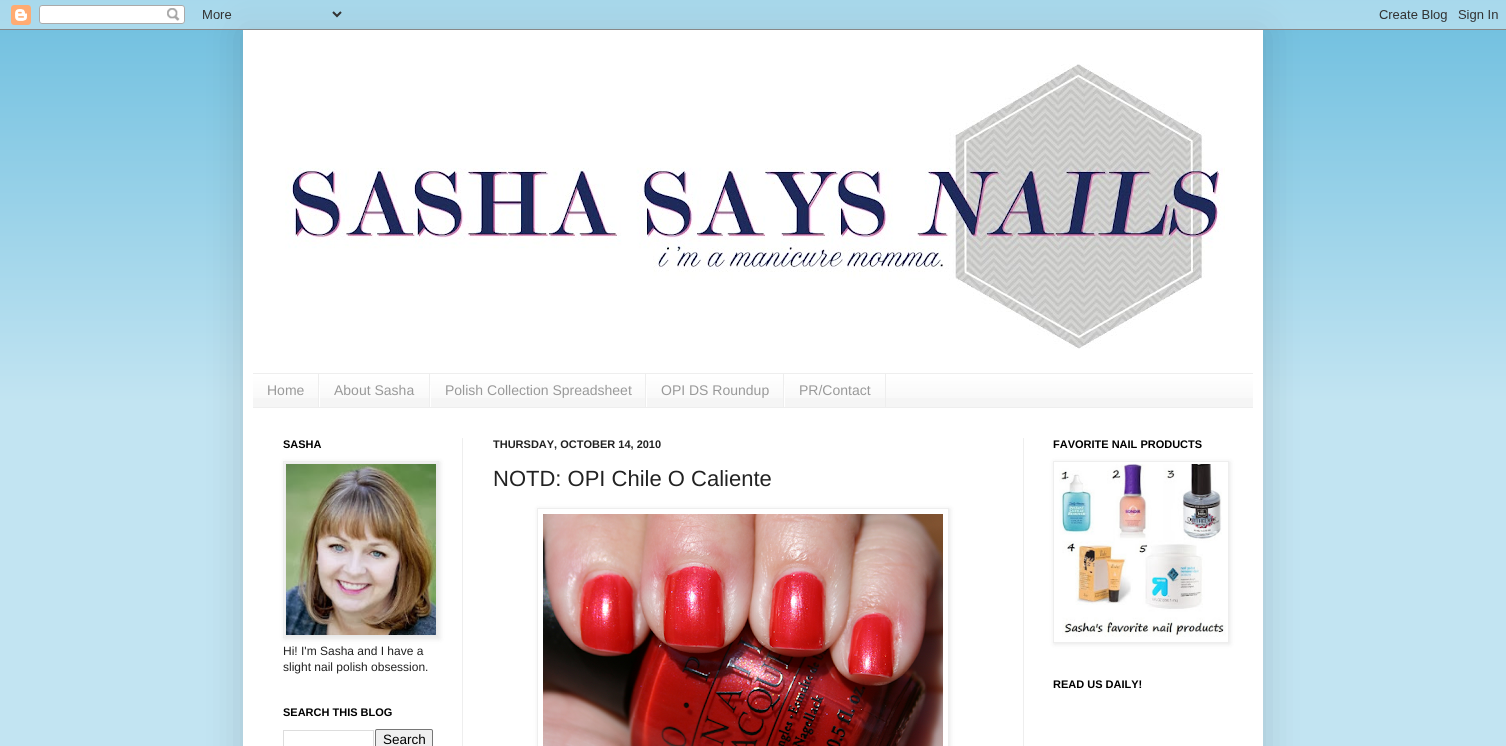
#include <cairo.h>
#include <math.h>
#include <stddef.h>

static cairo_t *ctx;

static void use_color(int r, int g, int b) {
    cairo_set_source_rgb(ctx, r / 255.0, g / 255.0, b / 255.0);
}

static void round_rect(double x, double y, double w, double h, double r) {
    cairo_new_sub_path(ctx);
    cairo_arc(ctx, x + w - r, y + h - r, r, 0, M_PI / 2);
    cairo_arc(ctx, x + r, y + h - r, r, M_PI / 2, M_PI);
    cairo_arc(ctx, x + r, y + r, r, M_PI, 1.5 * M_PI);
    cairo_arc(ctx, x + w - r, y + r, r, 1.5 * M_PI, 2 * M_PI);
    cairo_close_path(ctx);
}

static void shadow(double x, double y, double w, double h, double r, double blur, double alpha) {
    cairo_push_group_with_content(ctx, CAIRO_CONTENT_ALPHA);
    cairo_set_operator(ctx, CAIRO_OPERATOR_SOURCE);
    for (int i = 15; i >= -15 && fmin(w, h) + blur * i / 3 > 0; i -= 2) {
        double e = blur * i / 6;
        cairo_set_source_rgba(ctx, 0, 0, 0, alpha * erfc((i - 1) / 8.5) / 2);
        round_rect(x - e, y - e, w + 2 * e, h + 2 * e, fmax(0, fmin(r + e + blur * .6, fmin(w, h) / 2 + e)));
        cairo_fill(ctx);
    }
    cairo_pattern_t *soft = cairo_pop_group(ctx);
    cairo_mask(ctx, soft);
    cairo_pattern_destroy(soft);
}

static void picture(const char *path, double x, double y, double w, double h) {
    cairo_surface_t *image = cairo_image_surface_create_from_png(path);
    cairo_save(ctx);
    cairo_set_source_surface(ctx, image, x, y);
    cairo_rectangle(ctx, x, y, w, h);
    cairo_fill(ctx);
    cairo_restore(ctx);
    cairo_surface_destroy(image);
}

int main(void) {
    cairo_surface_t *surface = cairo_image_surface_create(CAIRO_FORMAT_RGB24, 1506, 746);
    ctx = cairo_create(surface);
    cairo_font_options_t *options = cairo_font_options_create();
    cairo_font_options_set_hint_metrics(options, CAIRO_HINT_METRICS_OFF);
    cairo_font_options_set_hint_style(options, CAIRO_HINT_STYLE_NONE);
    cairo_set_font_options(ctx, options);
    cairo_set_miter_limit(ctx, 4);
    use_color(194, 228, 242);
    cairo_paint(ctx);
    use_color(102, 187, 221);
    cairo_rectangle(ctx, 0, 0, 1506, 400);
    cairo_fill(ctx);
    picture("img1.png", 0, 0, 1506, 400);
    use_color(0, 0, 0);
    shadow(243, 30, 1020, 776, 0, 20, 0.15);
    picture("img2.png", 0, 0, 1506, 30);
    use_color(255, 255, 255);
    cairo_rectangle(ctx, 243, 30, 1020, 716);
    cairo_fill(ctx);
    picture("img3.png", 285, 64, 940, 285);
    use_color(245, 245, 245);
    cairo_rectangle(ctx, 253, 375, 1000, 32);
    cairo_fill(ctx);
    picture("img4.png", 253, 374, 1000, 24);
    use_color(238, 238, 238);
    cairo_rectangle(ctx, 253, 373, 1000, 1);
    cairo_fill(ctx);
    cairo_rectangle(ctx, 253, 407, 1000, 1);
    cairo_fill(ctx);
    cairo_rectangle(ctx, 318, 374, 1, 33);
    cairo_fill(ctx);
    cairo_select_font_face(ctx, "Liberation Sans", CAIRO_FONT_SLANT_NORMAL, CAIRO_FONT_WEIGHT_NORMAL);
    cairo_set_font_size(ctx, 14);
    use_color(153, 153, 153);
    cairo_move_to(ctx, 267, 395);
    cairo_show_text(ctx, "Home");
    use_color(238, 238, 238);
    cairo_rectangle(ctx, 429, 374, 1, 33);
    cairo_fill(ctx);
    use_color(255, 255, 255);
    cairo_rectangle(ctx, 319, 385, 1, 22);
    cairo_fill(ctx);
    use_color(153, 153, 153);
    cairo_move_to(ctx, 334, 395);
    cairo_show_text(ctx, "About Sasha");
    use_color(238, 238, 238);
    cairo_rectangle(ctx, 645, 374, 1, 33);
    cairo_fill(ctx);
    use_color(255, 255, 255);
    cairo_rectangle(ctx, 430, 385, 1, 22);
    cairo_fill(ctx);
    use_color(153, 153, 153);
    cairo_move_to(ctx, 445, 395);
    cairo_show_text(ctx, "Polish Collection Spreadsheet");
    use_color(238, 238, 238);
    cairo_rectangle(ctx, 783, 374, 1, 33);
    cairo_fill(ctx);
    use_color(255, 255, 255);
    cairo_rectangle(ctx, 646, 385, 1, 22);
    cairo_fill(ctx);
    use_color(153, 153, 153);
    cairo_move_to(ctx, 661, 395);
    cairo_show_text(ctx, "OPI DS Roundup");
    use_color(238, 238, 238);
    cairo_rectangle(ctx, 885, 374, 1, 33);
    cairo_fill(ctx);
    use_color(255, 255, 255);
    cairo_rectangle(ctx, 784, 385, 1, 22);
    cairo_fill(ctx);
    use_color(153, 153, 153);
    cairo_move_to(ctx, 799, 395);
    cairo_show_text(ctx, "PR/Contact");
    use_color(238, 238, 238);
    cairo_rectangle(ctx, 462, 438, 1, 308);
    cairo_fill(ctx);
    cairo_rectangle(ctx, 1023, 438, 1, 308);
    cairo_fill(ctx);
    cairo_select_font_face(ctx, "Liberation Sans", CAIRO_FONT_SLANT_NORMAL, CAIRO_FONT_WEIGHT_BOLD);
    cairo_set_font_size(ctx, 11);
    use_color(0, 0, 0);
    cairo_move_to(ctx, 283, 448);
    cairo_show_text(ctx, "SASHA");
    use_color(0, 0, 0);
    shadow(284, 462, 156, 177, 0, 2.5, 0.1);
    cairo_rectangle(ctx, 283.5, 461.5, 155, 176);
    use_color(238, 238, 238);
    cairo_set_line_width(ctx, 1);
    cairo_stroke(ctx);
    picture("img5.png", 286, 464, 150, 171);
    cairo_select_font_face(ctx, "Liberation Sans", CAIRO_FONT_SLANT_NORMAL, CAIRO_FONT_WEIGHT_NORMAL);
    cairo_set_font_size(ctx, 12);
    use_color(34, 34, 34);
    cairo_move_to(ctx, 283, 655);
    cairo_show_text(ctx, "Hi! I'm Sasha and I have a");
    cairo_move_to(ctx, 283, 671);
    cairo_show_text(ctx, "slight nail polish obsession.");
    cairo_select_font_face(ctx, "Liberation Sans", CAIRO_FONT_SLANT_NORMAL, CAIRO_FONT_WEIGHT_BOLD);
    cairo_set_font_size(ctx, 11);
    use_color(0, 0, 0);
    cairo_move_to(ctx, 283, 716);
    cairo_show_text(ctx, "SEARCH THIS BLOG");
    cairo_rectangle(ctx, 283.5, 730.5, 90, 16);
    use_color(221, 221, 221);
    cairo_stroke(ctx);
    use_color(239, 239, 239);
    round_rect(375.5, 729.5, 57, 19, 1.5);
    cairo_fill_preserve(ctx);
    use_color(118, 118, 118);
    cairo_stroke(ctx);
    cairo_select_font_face(ctx, "Liberation Sans", CAIRO_FONT_SLANT_NORMAL, CAIRO_FONT_WEIGHT_NORMAL);
    cairo_set_font_size(ctx, 13.5);
    use_color(0, 0, 0);
    cairo_move_to(ctx, 383, 744);
    cairo_show_text(ctx, "Search");
    cairo_select_font_face(ctx, "Liberation Sans", CAIRO_FONT_SLANT_NORMAL, CAIRO_FONT_WEIGHT_BOLD);
    cairo_set_font_size(ctx, 11);
    use_color(34, 34, 34);
    cairo_move_to(ctx, 493, 448);
    cairo_show_text(ctx, "THURSDAY, OCTOBER 14, 2010");
    cairo_select_font_face(ctx, "Liberation Sans", CAIRO_FONT_SLANT_NORMAL, CAIRO_FONT_WEIGHT_NORMAL);
    cairo_set_font_size(ctx, 22);
    cairo_move_to(ctx, 493, 486);
    cairo_show_text(ctx, "NOTD: OPI Chile O Caliente");
    cairo_save(ctx);
    cairo_set_fill_rule(ctx, CAIRO_FILL_RULE_EVEN_ODD);
    cairo_new_path(ctx);
    cairo_move_to(ctx, 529, 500);
    cairo_line_to(ctx, 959, 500);
    cairo_line_to(ctx, 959, 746);
    cairo_line_to(ctx, 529, 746);
    cairo_close_path(ctx);
    cairo_move_to(ctx, 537, 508);
    cairo_line_to(ctx, 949, 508);
    cairo_line_to(ctx, 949, 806);
    cairo_line_to(ctx, 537, 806);
    cairo_close_path(ctx);
    cairo_clip(ctx);
    use_color(0, 0, 0);
    shadow(538, 509, 412, 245, 0, 2.5, 0.1);
    cairo_restore(ctx);
    cairo_rectangle(ctx, 537.5, 508.5, 411, 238);
    use_color(238, 238, 238);
    cairo_stroke(ctx);
    picture("img6.png", 543, 514, 400, 232);
    cairo_select_font_face(ctx, "Liberation Sans", CAIRO_FONT_SLANT_NORMAL, CAIRO_FONT_WEIGHT_BOLD);
    cairo_set_font_size(ctx, 11);
    use_color(0, 0, 0);
    cairo_move_to(ctx, 1053, 448);
    cairo_show_text(ctx, "FAVORITE NAIL PRODUCTS");
    cairo_save(ctx);
    cairo_set_fill_rule(ctx, CAIRO_FILL_RULE_EVEN_ODD);
    cairo_new_path(ctx);
    cairo_move_to(ctx, 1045, 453);
    cairo_line_to(ctx, 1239, 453);
    cairo_line_to(ctx, 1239, 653);
    cairo_line_to(ctx, 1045, 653);
    cairo_close_path(ctx);
    cairo_move_to(ctx, 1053, 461);
    cairo_line_to(ctx, 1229, 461);
    cairo_line_to(ctx, 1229, 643);
    cairo_line_to(ctx, 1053, 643);
    cairo_close_path(ctx);
    cairo_clip(ctx);
    use_color(0, 0, 0);
    shadow(1054, 462, 176, 182, 0, 2.5, 0.1);
    cairo_restore(ctx);
    cairo_rectangle(ctx, 1053.5, 461.5, 175, 181);
    use_color(238, 238, 238);
    cairo_stroke(ctx);
    picture("img7.png", 1059, 464, 167, 173);
    use_color(0, 0, 0);
    cairo_move_to(ctx, 1053, 688);
    cairo_show_text(ctx, "READ US DAILY!");
    cairo_surface_write_to_png(surface, "result.png");
    cairo_font_options_destroy(options);
    cairo_destroy(ctx);
    cairo_surface_destroy(surface);
    return 0;
}
